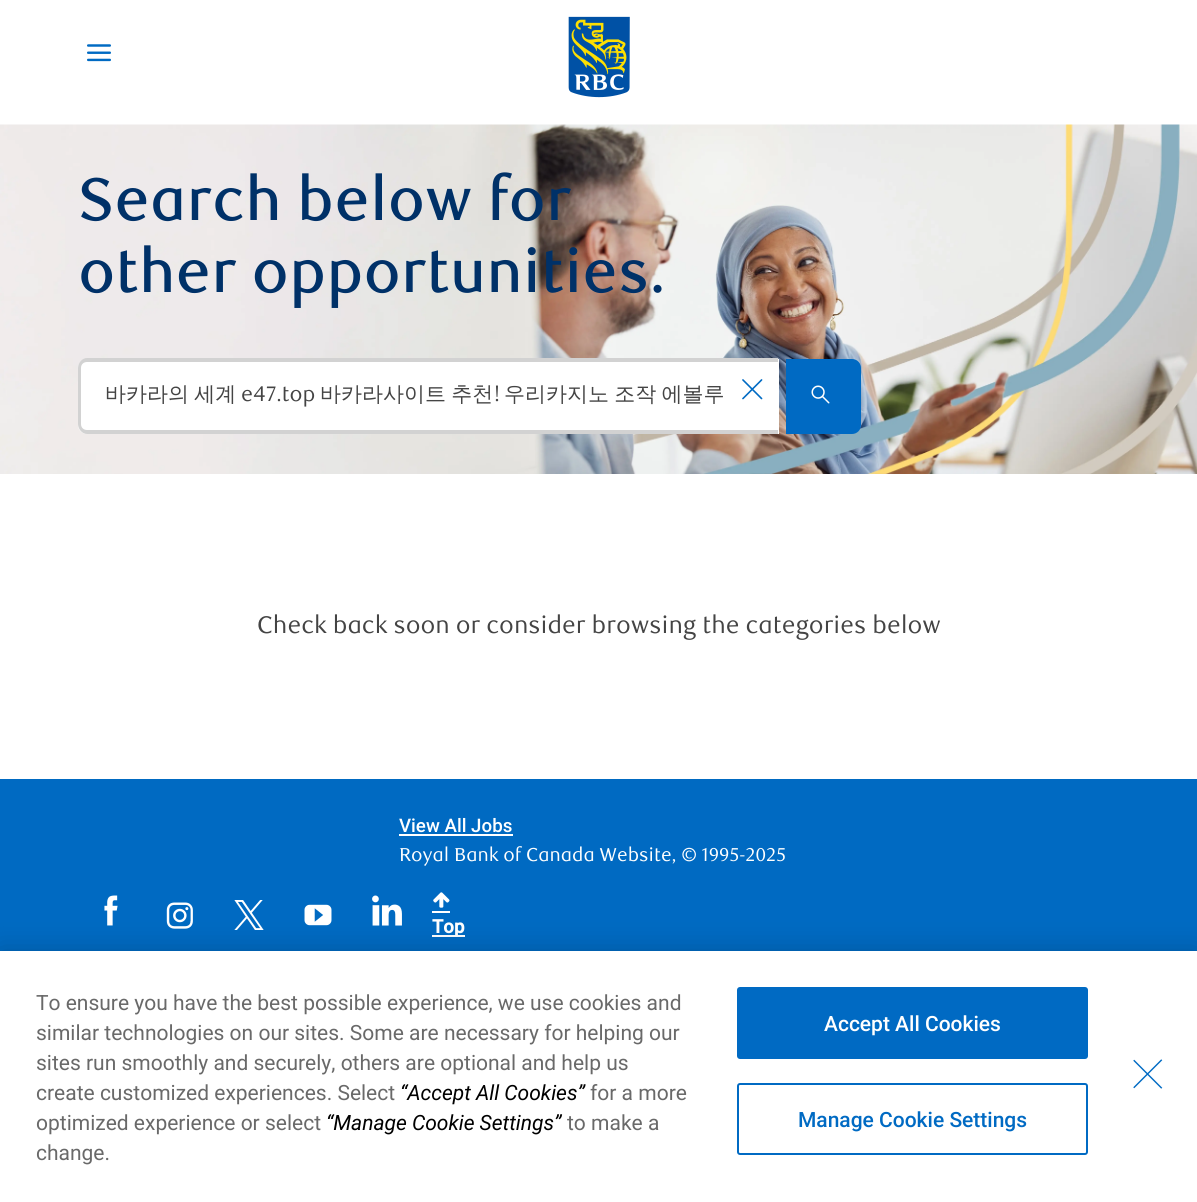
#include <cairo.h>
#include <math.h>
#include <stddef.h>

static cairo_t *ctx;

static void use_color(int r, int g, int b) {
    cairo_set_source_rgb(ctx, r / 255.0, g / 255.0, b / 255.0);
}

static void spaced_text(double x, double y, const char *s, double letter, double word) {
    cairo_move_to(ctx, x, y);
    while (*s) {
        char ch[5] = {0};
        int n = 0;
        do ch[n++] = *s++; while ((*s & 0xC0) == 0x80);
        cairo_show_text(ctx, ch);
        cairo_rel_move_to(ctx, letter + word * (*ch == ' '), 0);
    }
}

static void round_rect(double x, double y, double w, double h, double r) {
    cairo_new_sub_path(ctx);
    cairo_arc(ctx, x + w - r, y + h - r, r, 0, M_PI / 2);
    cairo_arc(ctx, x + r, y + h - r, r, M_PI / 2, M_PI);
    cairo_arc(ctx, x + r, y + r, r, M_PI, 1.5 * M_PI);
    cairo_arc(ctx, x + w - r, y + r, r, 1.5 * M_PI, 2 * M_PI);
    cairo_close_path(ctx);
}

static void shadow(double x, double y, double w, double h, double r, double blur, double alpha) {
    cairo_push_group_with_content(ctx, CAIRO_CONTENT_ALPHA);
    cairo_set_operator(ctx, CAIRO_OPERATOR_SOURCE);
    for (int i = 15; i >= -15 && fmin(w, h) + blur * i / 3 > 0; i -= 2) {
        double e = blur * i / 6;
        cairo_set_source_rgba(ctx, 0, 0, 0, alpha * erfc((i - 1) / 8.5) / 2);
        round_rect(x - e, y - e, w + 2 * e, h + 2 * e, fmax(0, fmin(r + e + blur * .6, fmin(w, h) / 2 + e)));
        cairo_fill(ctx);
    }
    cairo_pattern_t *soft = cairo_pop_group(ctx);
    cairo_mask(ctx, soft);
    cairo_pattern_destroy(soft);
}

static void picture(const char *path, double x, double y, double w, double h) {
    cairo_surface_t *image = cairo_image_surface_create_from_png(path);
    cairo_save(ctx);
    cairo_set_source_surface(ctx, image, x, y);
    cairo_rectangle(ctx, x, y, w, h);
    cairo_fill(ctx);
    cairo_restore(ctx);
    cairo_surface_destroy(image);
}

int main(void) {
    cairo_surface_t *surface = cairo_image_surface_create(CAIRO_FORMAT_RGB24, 1197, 1202);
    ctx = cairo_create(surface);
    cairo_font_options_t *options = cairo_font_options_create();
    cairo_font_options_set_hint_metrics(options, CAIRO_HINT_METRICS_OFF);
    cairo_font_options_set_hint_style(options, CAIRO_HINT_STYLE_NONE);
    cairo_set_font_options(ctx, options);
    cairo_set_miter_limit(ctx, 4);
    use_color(255, 255, 255);
    cairo_paint(ctx);
    picture("img1.png", 87, 44, 24, 18);
    picture("img2.png", 568, 16, 62, 82);
    picture("img3.png", 0, 124, 1197, 350);
    cairo_select_font_face(ctx, "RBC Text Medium", CAIRO_FONT_SLANT_NORMAL, CAIRO_FONT_WEIGHT_NORMAL);
    cairo_set_font_size(ctx, 60);
    use_color(0, 49, 104);
    cairo_move_to(ctx, 78, 220);
    cairo_show_text(ctx, "Search below for");
    cairo_move_to(ctx, 78, 292);
    cairo_show_text(ctx, "other opportunities.");
    use_color(255, 255, 255);
    cairo_new_path(ctx);
    cairo_move_to(ctx, 87, 359);
    cairo_line_to(ctx, 779, 359);
    cairo_line_to(ctx, 779, 434);
    cairo_line_to(ctx, 87, 434);
    cairo_curve_to(ctx, 82, 434, 78, 430, 78, 425);
    cairo_line_to(ctx, 78, 368);
    cairo_curve_to(ctx, 78, 363, 82, 359, 87, 359);
    cairo_close_path(ctx);
    cairo_fill(ctx);
    use_color(210, 210, 210);
    cairo_set_fill_rule(ctx, CAIRO_FILL_RULE_EVEN_ODD);
    cairo_new_path(ctx);
    cairo_move_to(ctx, 87, 358);
    cairo_line_to(ctx, 778, 358);
    cairo_line_to(ctx, 778, 434);
    cairo_line_to(ctx, 87, 434);
    cairo_curve_to(ctx, 82, 434, 78, 429, 78, 424);
    cairo_line_to(ctx, 78, 368);
    cairo_curve_to(ctx, 78, 363, 82, 358, 87, 358);
    cairo_close_path(ctx);
    cairo_move_to(ctx, 87, 362);
    cairo_line_to(ctx, 778, 362);
    cairo_line_to(ctx, 778, 430);
    cairo_line_to(ctx, 87, 430);
    cairo_curve_to(ctx, 84, 430, 81, 428, 81, 424);
    cairo_line_to(ctx, 81, 368);
    cairo_curve_to(ctx, 81, 364, 84, 362, 87, 362);
    cairo_close_path(ctx);
    cairo_fill(ctx);
    cairo_select_font_face(ctx, "WenQuanYi Zen Hei Medium", CAIRO_FONT_SLANT_NORMAL, CAIRO_FONT_WEIGHT_NORMAL);
    cairo_set_font_size(ctx, 21);
    use_color(68, 68, 68);
    spaced_text(105, 401, "바카라의 세계", 0, -1);
    cairo_select_font_face(ctx, "RBC Text", CAIRO_FONT_SLANT_NORMAL, CAIRO_FONT_WEIGHT_NORMAL);
    cairo_move_to(ctx, 241, 401);
    cairo_show_text(ctx, "e47.top");
    cairo_select_font_face(ctx, "WenQuanYi Zen Hei Medium", CAIRO_FONT_SLANT_NORMAL, CAIRO_FONT_WEIGHT_NORMAL);
    spaced_text(320, 401, "바카라사이트 추천", 0, -1);
    cairo_select_font_face(ctx, "RBC Text", CAIRO_FONT_SLANT_NORMAL, CAIRO_FONT_WEIGHT_NORMAL);
    cairo_move_to(ctx, 494, 401);
    cairo_show_text(ctx, "!");
    cairo_select_font_face(ctx, "WenQuanYi Zen Hei Medium", CAIRO_FONT_SLANT_NORMAL, CAIRO_FONT_WEIGHT_NORMAL);
    spaced_text(504, 401, "우리카지노 조작 에볼루", 0, -1);
    picture("img4.png", 742, 379, 21, 21);
    use_color(0, 106, 195);
    cairo_new_path(ctx);
    cairo_move_to(ctx, 786, 359);
    cairo_line_to(ctx, 852, 359);
    cairo_curve_to(ctx, 857, 359, 861, 363, 861, 368);
    cairo_line_to(ctx, 861, 425);
    cairo_curve_to(ctx, 861, 430, 857, 434, 852, 434);
    cairo_line_to(ctx, 786, 434);
    cairo_close_path(ctx);
    cairo_fill(ctx);
    picture("img5.png", 811, 385, 19, 19);
    cairo_select_font_face(ctx, "RBC Text", CAIRO_FONT_SLANT_NORMAL, CAIRO_FONT_WEIGHT_NORMAL);
    cairo_set_font_size(ctx, 24);
    use_color(68, 68, 68);
    cairo_move_to(ctx, 257, 633);
    cairo_show_text(ctx, "Check back soon or consider browsing the categories below");
    use_color(0, 106, 194);
    cairo_rectangle(ctx, 0, 779, 1197, 172);
    cairo_fill(ctx);
    cairo_select_font_face(ctx, "Roboto Medium", CAIRO_FONT_SLANT_NORMAL, CAIRO_FONT_WEIGHT_NORMAL);
    cairo_set_font_size(ctx, 18.7);
    use_color(255, 255, 255);
    cairo_move_to(ctx, 399, 832);
    cairo_show_text(ctx, "View All Jobs");
    cairo_rectangle(ctx, 399, 834, 114, 2);
    cairo_fill(ctx);
    cairo_select_font_face(ctx, "RBC Text", CAIRO_FONT_SLANT_NORMAL, CAIRO_FONT_WEIGHT_NORMAL);
    cairo_move_to(ctx, 399, 861);
    cairo_show_text(ctx, "Royal Bank of Canada Website, © 1995-2025");
    picture("img6.png", 104, 895, 14, 31);
    picture("img7.png", 166, 902, 27, 27);
    picture("img8.png", 234, 900, 30, 30);
    picture("img9.png", 304, 904, 28, 22);
    picture("img10.png", 372, 895, 30, 31);
    picture("img11.png", 433, 892, 17, 16);
    cairo_rectangle(ctx, 432, 911, 18, 2);
    cairo_fill(ctx);
    cairo_rectangle(ctx, 432, 935, 33, 2);
    cairo_fill(ctx);
    cairo_select_font_face(ctx, "Roboto", CAIRO_FONT_SLANT_NORMAL, CAIRO_FONT_WEIGHT_BOLD);
    cairo_move_to(ctx, 432, 933);
    cairo_show_text(ctx, "Top");
    use_color(0, 0, 0);
    shadow(0, 951, 1197, 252, 0, 13.5, 0.2);
    use_color(255, 255, 255);
    cairo_rectangle(ctx, 0, 951, 1197, 251);
    cairo_fill(ctx);
    cairo_select_font_face(ctx, "Roboto", CAIRO_FONT_SLANT_NORMAL, CAIRO_FONT_WEIGHT_NORMAL);
    cairo_set_font_size(ctx, 21);
    use_color(105, 105, 105);
    cairo_move_to(ctx, 36, 1010);
    cairo_show_text(ctx, "To ensure you have the best possible experience, we use cookies and");
    cairo_move_to(ctx, 36, 1040);
    cairo_show_text(ctx, "similar technologies on our sites. Some are necessary for helping our");
    cairo_move_to(ctx, 36, 1070);
    cairo_show_text(ctx, "sites run smoothly and securely, others are optional and help us");
    cairo_move_to(ctx, 36, 1100);
    cairo_show_text(ctx, "create customized experiences. Select");
    cairo_select_font_face(ctx, "Roboto", CAIRO_FONT_SLANT_ITALIC, CAIRO_FONT_WEIGHT_NORMAL);
    use_color(0, 0, 0);
    cairo_move_to(ctx, 400, 1100);
    cairo_show_text(ctx, "“Accept All Cookies”");
    cairo_select_font_face(ctx, "Roboto", CAIRO_FONT_SLANT_NORMAL, CAIRO_FONT_WEIGHT_NORMAL);
    use_color(105, 105, 105);
    cairo_move_to(ctx, 590, 1100);
    cairo_show_text(ctx, "for a more");
    cairo_move_to(ctx, 36, 1130);
    cairo_show_text(ctx, "optimized experience or select");
    cairo_select_font_face(ctx, "Roboto", CAIRO_FONT_SLANT_ITALIC, CAIRO_FONT_WEIGHT_NORMAL);
    use_color(0, 0, 0);
    cairo_move_to(ctx, 326, 1130);
    cairo_show_text(ctx, "“Manage Cookie Settings”");
    cairo_select_font_face(ctx, "Roboto", CAIRO_FONT_SLANT_NORMAL, CAIRO_FONT_WEIGHT_NORMAL);
    use_color(105, 105, 105);
    cairo_move_to(ctx, 567, 1130);
    cairo_show_text(ctx, "to make a");
    cairo_move_to(ctx, 36, 1160);
    cairo_show_text(ctx, "change.");
    use_color(0, 106, 195);
    round_rect(738, 988, 349, 70, 2);
    cairo_fill_preserve(ctx);
    cairo_stroke(ctx);
    cairo_select_font_face(ctx, "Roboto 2 Medium", CAIRO_FONT_SLANT_NORMAL, CAIRO_FONT_WEIGHT_NORMAL);
    use_color(255, 255, 255);
    cairo_move_to(ctx, 824, 1031);
    cairo_show_text(ctx, "Accept All Cookies");
    round_rect(738, 1084, 349, 70, 2);
    use_color(0, 106, 195);
    cairo_stroke(ctx);
    cairo_move_to(ctx, 798, 1127);
    cairo_show_text(ctx, "Manage Cookie Settings");
    picture("img12.png", 1133, 1059, 30, 30);
    cairo_surface_write_to_png(surface, "result.png");
    cairo_font_options_destroy(options);
    cairo_destroy(ctx);
    cairo_surface_destroy(surface);
    return 0;
}
